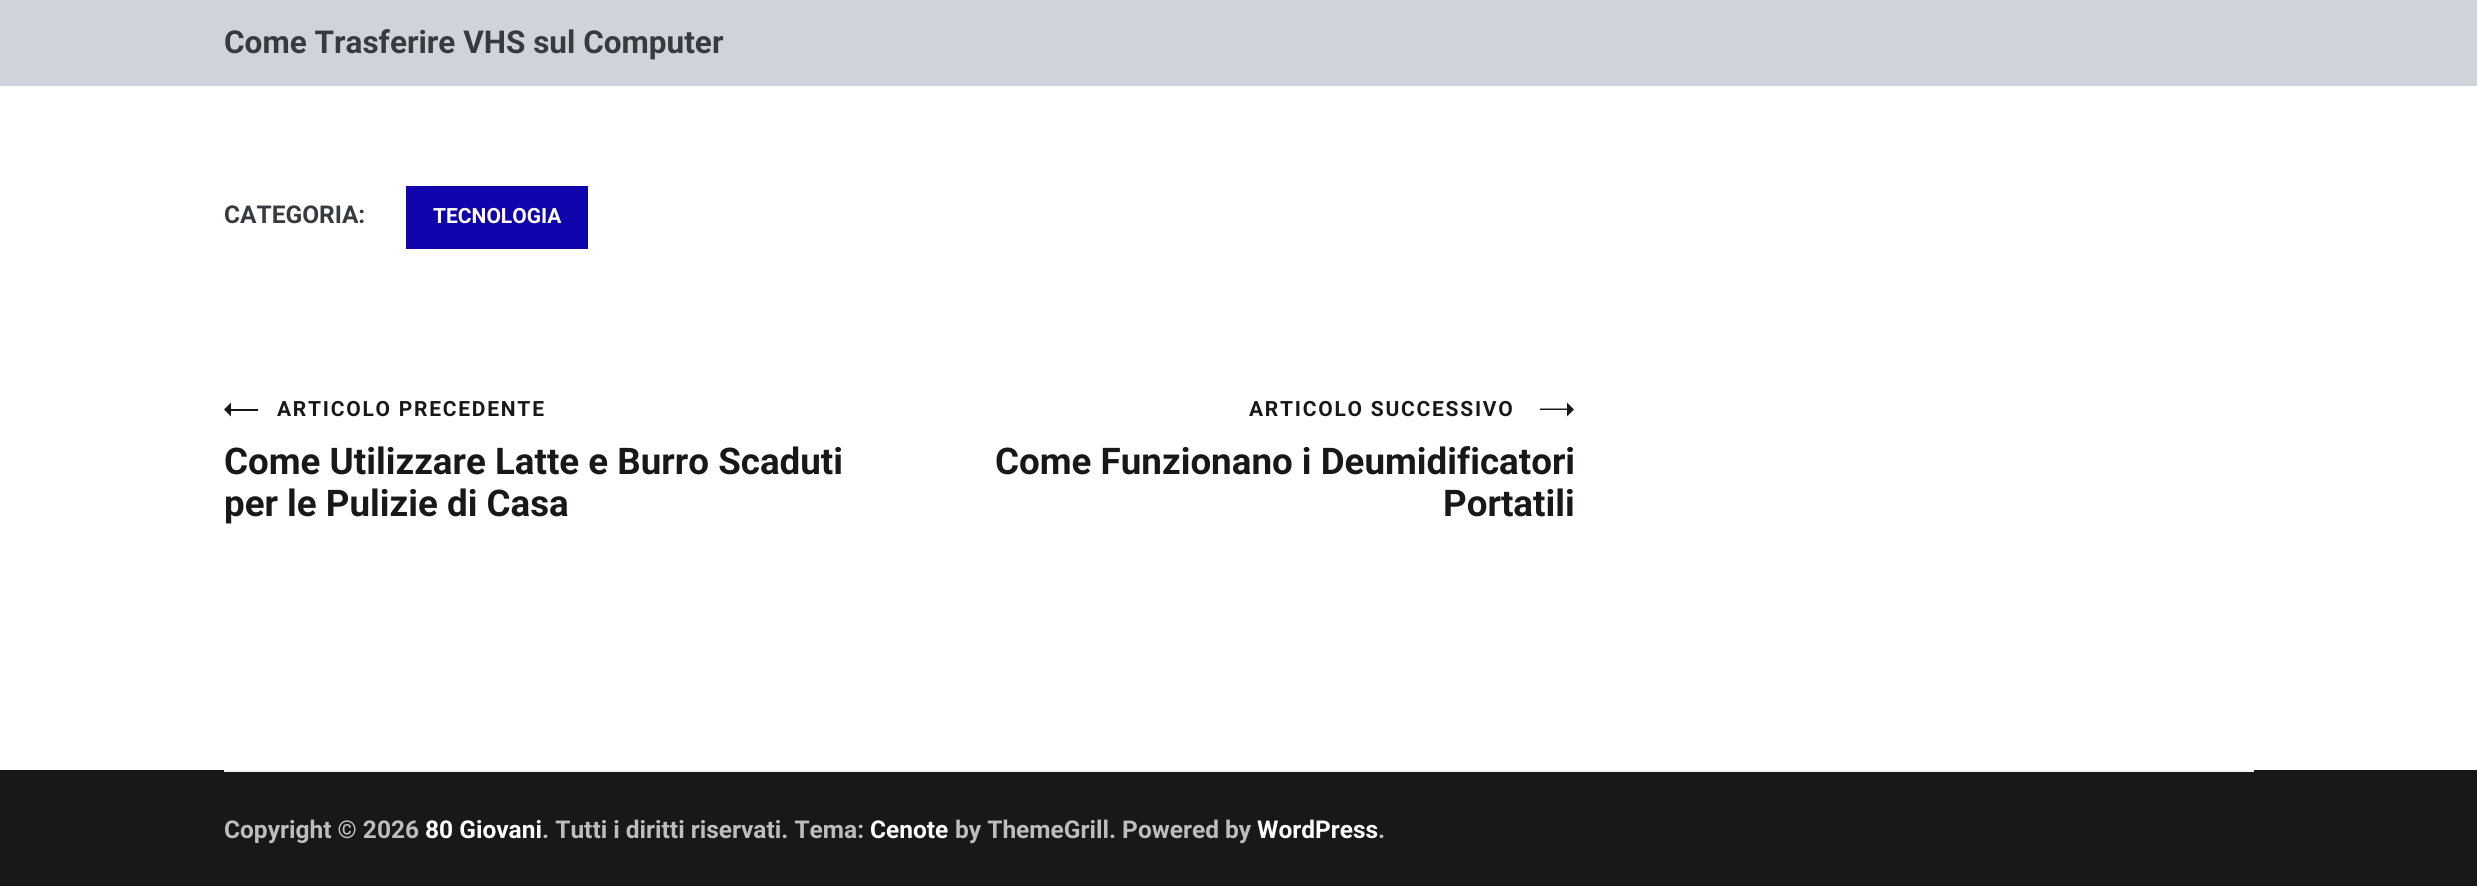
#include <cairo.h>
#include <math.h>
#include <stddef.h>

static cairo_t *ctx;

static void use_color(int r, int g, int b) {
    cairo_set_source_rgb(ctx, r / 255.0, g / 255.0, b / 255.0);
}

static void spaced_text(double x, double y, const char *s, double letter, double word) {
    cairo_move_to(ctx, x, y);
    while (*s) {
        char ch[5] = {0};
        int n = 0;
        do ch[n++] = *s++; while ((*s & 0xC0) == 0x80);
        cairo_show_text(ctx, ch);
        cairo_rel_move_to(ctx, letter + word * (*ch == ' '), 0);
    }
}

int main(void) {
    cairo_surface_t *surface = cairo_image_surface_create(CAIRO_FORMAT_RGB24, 2477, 886);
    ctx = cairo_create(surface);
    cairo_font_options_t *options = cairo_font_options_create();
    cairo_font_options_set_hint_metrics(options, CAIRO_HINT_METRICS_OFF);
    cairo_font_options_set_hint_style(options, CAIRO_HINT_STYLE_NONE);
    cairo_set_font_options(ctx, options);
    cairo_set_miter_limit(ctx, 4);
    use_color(255, 255, 255);
    cairo_paint(ctx);
    use_color(206, 212, 218);
    cairo_rectangle(ctx, 0, 0, 2477, 86);
    cairo_fill(ctx);
    cairo_select_font_face(ctx, "Roboto", CAIRO_FONT_SLANT_NORMAL, CAIRO_FONT_WEIGHT_BOLD);
    cairo_set_font_size(ctx, 31.5);
    use_color(54, 59, 64);
    cairo_move_to(ctx, 224, 53);
    cairo_show_text(ctx, "Come Trasferire VHS sul Computer");
    cairo_set_font_size(ctx, 24.5);
    cairo_move_to(ctx, 224, 223);
    cairo_show_text(ctx, "CATEGORIA:");
    use_color(16, 5, 173);
    cairo_rectangle(ctx, 406, 186, 182, 63);
    cairo_fill(ctx);
    cairo_set_font_size(ctx, 21);
    use_color(255, 255, 255);
    cairo_move_to(ctx, 433, 223);
    cairo_show_text(ctx, "TECNOLOGIA");
    use_color(22, 24, 26);
    cairo_new_path(ctx);
    cairo_move_to(ctx, 224, 409.5);
    cairo_line_to(ctx, 231, 402.5);
    cairo_line_to(ctx, 231, 416.5);
    cairo_close_path(ctx);
    cairo_move_to(ctx, 231, 409);
    cairo_line_to(ctx, 258, 409);
    cairo_line_to(ctx, 258, 411);
    cairo_line_to(ctx, 231, 411);
    cairo_close_path(ctx);
    cairo_fill(ctx);
    spaced_text(277, 416, "ARTICOLO PRECEDENTE", 1.75, 0);
    cairo_set_font_size(ctx, 36.75);
    cairo_move_to(ctx, 224, 474);
    cairo_show_text(ctx, "Come Utilizzare Latte e Burro Scaduti");
    cairo_move_to(ctx, 224, 516);
    cairo_show_text(ctx, "per le Pulizie di Casa");
    cairo_set_font_size(ctx, 21);
    spaced_text(1249, 416, "ARTICOLO SUCCESSIVO", 1.75, 0);
    cairo_new_path(ctx);
    cairo_move_to(ctx, 1574, 409.5);
    cairo_line_to(ctx, 1567, 416.5);
    cairo_line_to(ctx, 1567, 402.5);
    cairo_close_path(ctx);
    cairo_move_to(ctx, 1540, 408.5);
    cairo_line_to(ctx, 1567.5, 408.5);
    cairo_line_to(ctx, 1567.5, 410);
    cairo_line_to(ctx, 1540, 410);
    cairo_close_path(ctx);
    cairo_fill(ctx);
    cairo_set_font_size(ctx, 36.75);
    cairo_move_to(ctx, 995, 474);
    cairo_show_text(ctx, "Come Funzionano i Deumidificatori");
    cairo_move_to(ctx, 1443, 516);
    cairo_show_text(ctx, "Portatili");
    cairo_rectangle(ctx, 0, 770, 2477, 116);
    cairo_fill(ctx);
    use_color(241, 243, 245);
    cairo_rectangle(ctx, 224, 770, 2030, 2);
    cairo_fill(ctx);
    cairo_set_font_size(ctx, 24.5);
    use_color(189, 189, 189);
    cairo_move_to(ctx, 224, 838);
    cairo_show_text(ctx, "Copyright © 2026");
    use_color(255, 255, 255);
    cairo_move_to(ctx, 425, 838);
    cairo_show_text(ctx, "80 Giovani");
    use_color(189, 189, 189);
    cairo_move_to(ctx, 542, 838);
    cairo_show_text(ctx, ". Tutti i diritti riservati. Tema:");
    use_color(255, 255, 255);
    cairo_move_to(ctx, 870, 838);
    cairo_show_text(ctx, "Cenote");
    use_color(189, 189, 189);
    cairo_move_to(ctx, 955, 838);
    cairo_show_text(ctx, "by ThemeGrill. Powered by");
    use_color(255, 255, 255);
    cairo_move_to(ctx, 1257, 838);
    cairo_show_text(ctx, "WordPress");
    use_color(189, 189, 189);
    cairo_move_to(ctx, 1378, 838);
    cairo_show_text(ctx, ".");
    cairo_surface_write_to_png(surface, "result.png");
    cairo_font_options_destroy(options);
    cairo_destroy(ctx);
    cairo_surface_destroy(surface);
    return 0;
}
